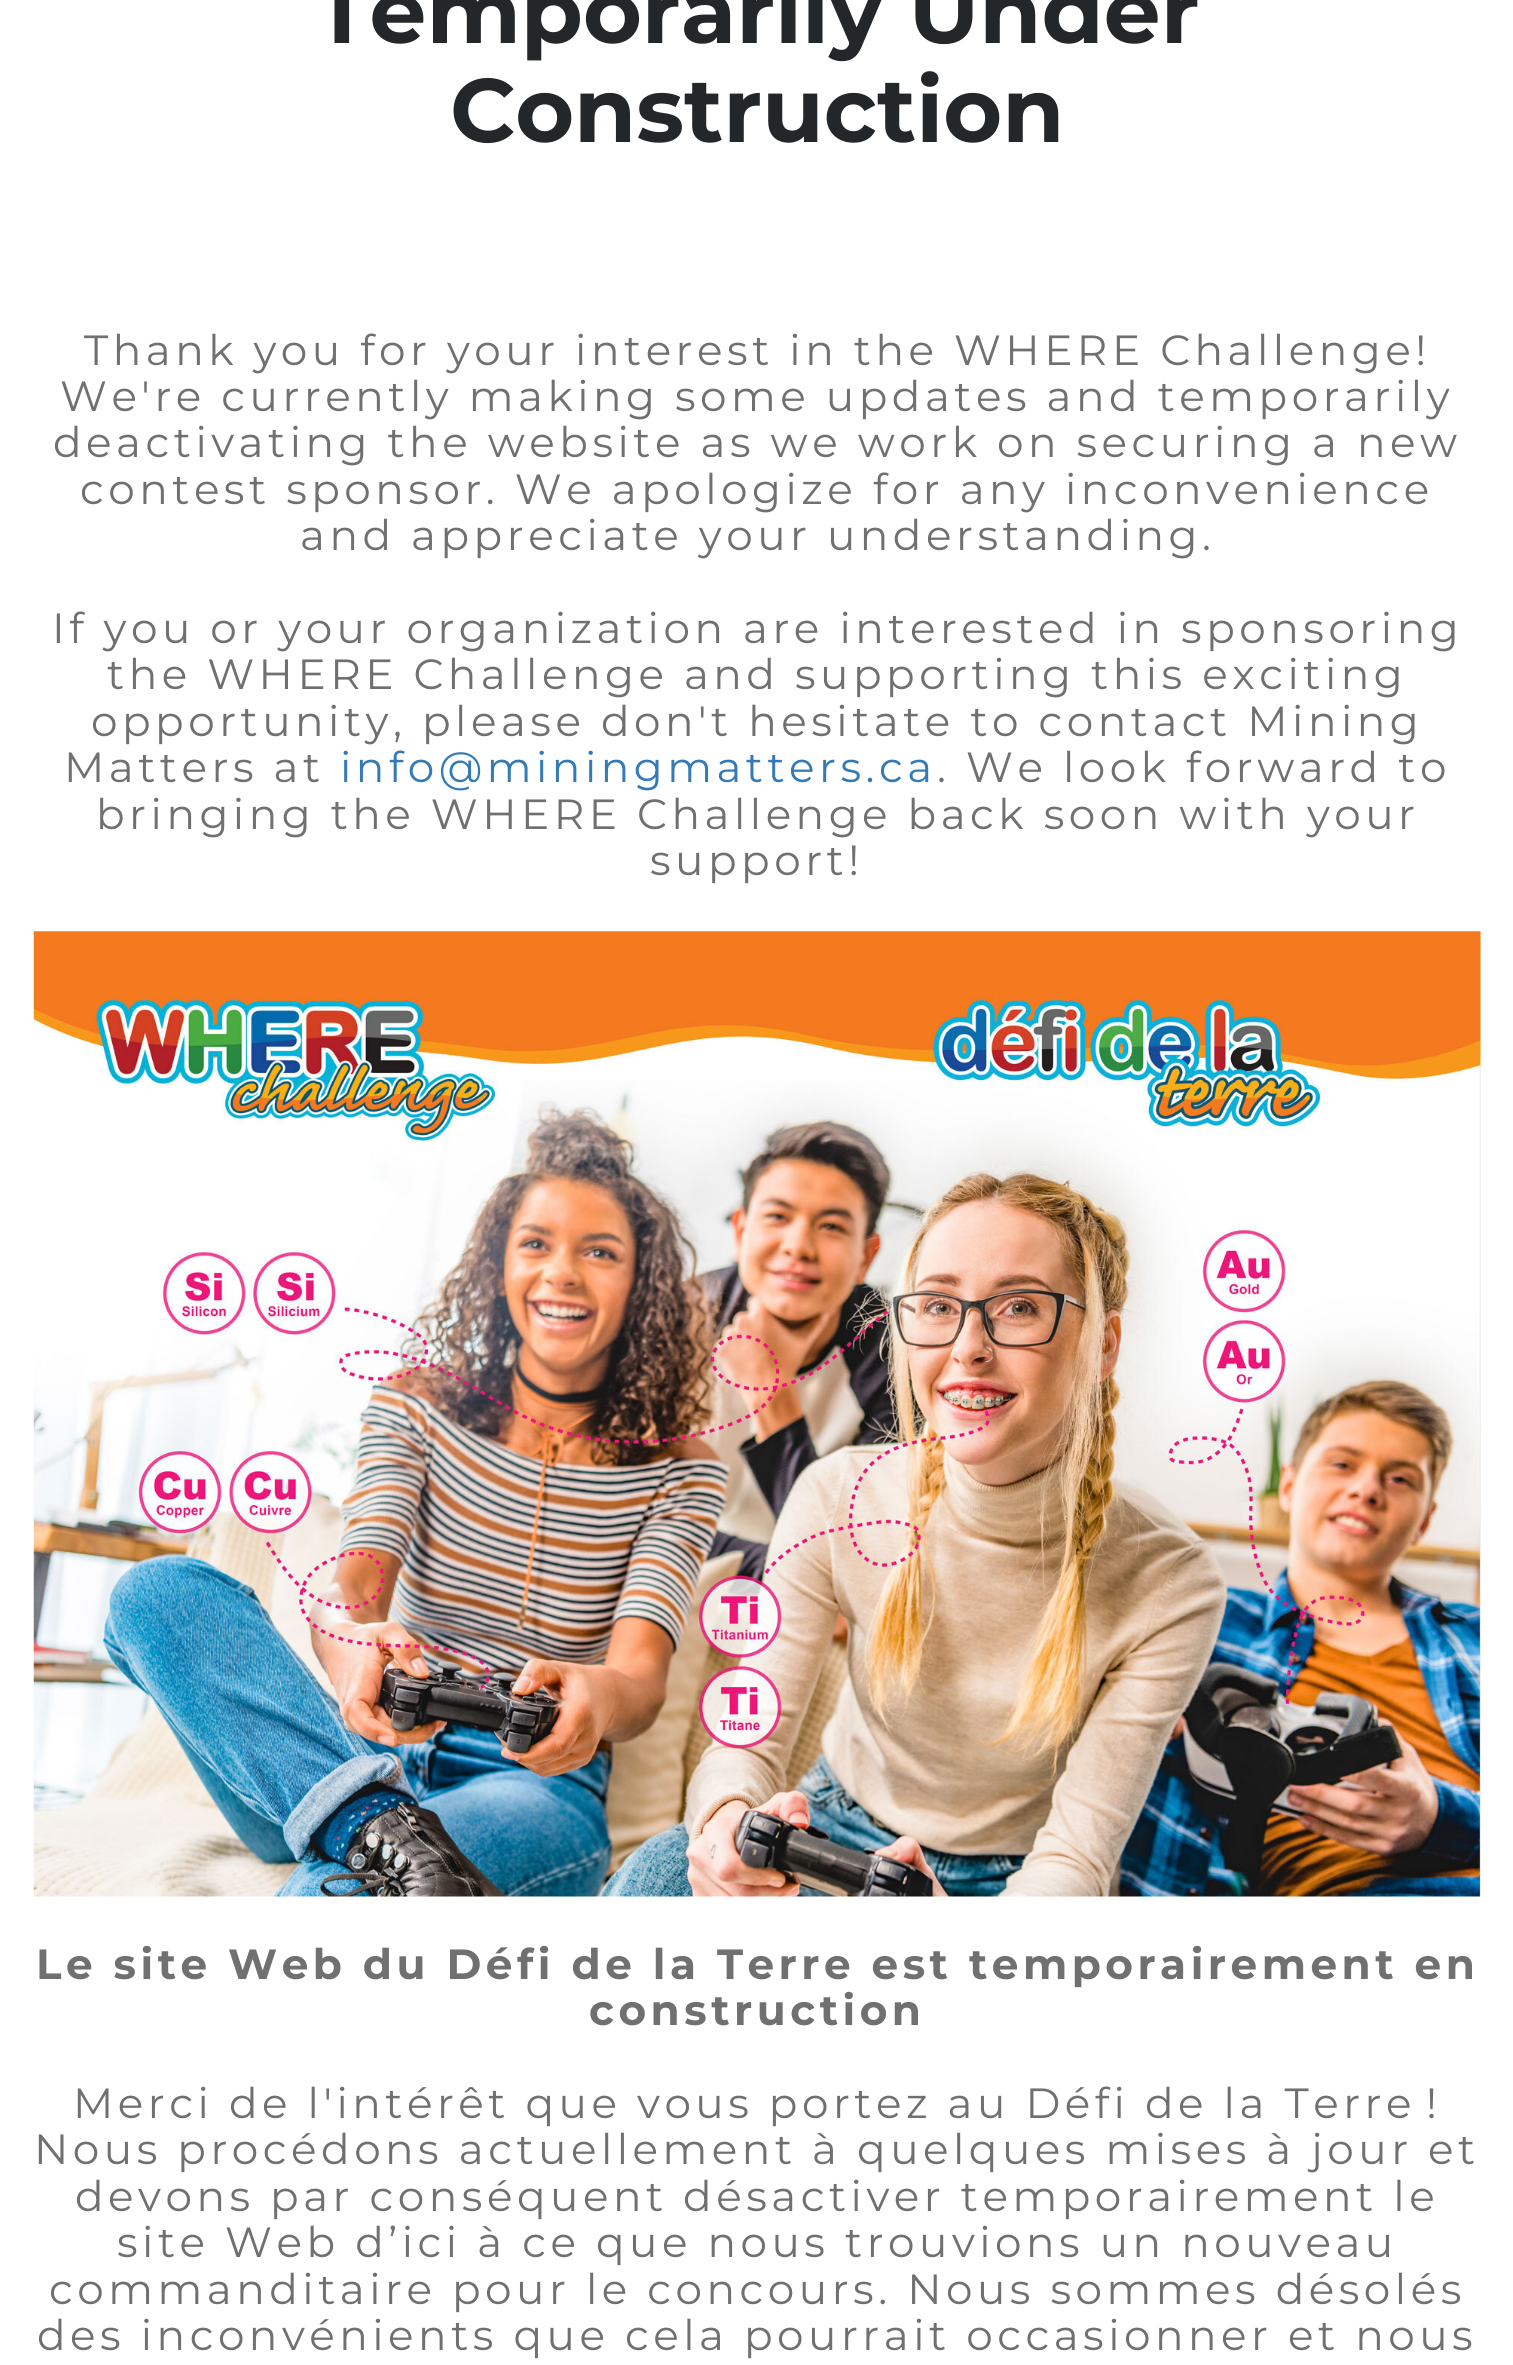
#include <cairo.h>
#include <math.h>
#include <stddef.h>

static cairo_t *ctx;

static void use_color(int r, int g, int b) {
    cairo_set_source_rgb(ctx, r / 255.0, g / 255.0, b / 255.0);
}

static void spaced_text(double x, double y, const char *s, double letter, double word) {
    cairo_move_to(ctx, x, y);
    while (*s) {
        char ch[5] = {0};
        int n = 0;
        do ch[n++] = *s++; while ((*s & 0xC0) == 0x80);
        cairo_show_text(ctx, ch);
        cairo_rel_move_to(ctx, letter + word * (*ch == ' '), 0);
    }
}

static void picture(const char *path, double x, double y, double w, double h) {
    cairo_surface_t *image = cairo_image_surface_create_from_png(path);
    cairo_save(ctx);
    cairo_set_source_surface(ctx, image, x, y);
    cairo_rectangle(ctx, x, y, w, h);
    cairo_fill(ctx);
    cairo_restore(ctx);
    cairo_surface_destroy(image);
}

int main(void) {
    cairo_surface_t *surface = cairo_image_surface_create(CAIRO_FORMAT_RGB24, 1513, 2365);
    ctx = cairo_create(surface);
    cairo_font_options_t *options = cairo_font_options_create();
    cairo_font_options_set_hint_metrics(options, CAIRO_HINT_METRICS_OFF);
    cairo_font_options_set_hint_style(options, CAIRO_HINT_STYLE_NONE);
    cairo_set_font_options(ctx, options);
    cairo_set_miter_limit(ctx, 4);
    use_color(255, 255, 255);
    cairo_paint(ctx);
    cairo_select_font_face(ctx, "Montserrat Thin", CAIRO_FONT_SLANT_NORMAL, CAIRO_FONT_WEIGHT_NORMAL);
    cairo_set_font_size(ctx, 90);
    use_color(35, 39, 42);
    cairo_move_to(ctx, 314, 43);
    cairo_show_text(ctx, "Temporarily Under");
    cairo_move_to(ctx, 450, 142);
    cairo_show_text(ctx, "Construction");
    cairo_select_font_face(ctx, "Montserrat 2 Thin", CAIRO_FONT_SLANT_NORMAL, CAIRO_FONT_WEIGHT_NORMAL);
    cairo_set_font_size(ctx, 42.2);
    use_color(112, 112, 112);
    spaced_text(84, 365, "Thank you for your interest in the WHERE Challenge!", 4.5, 0);
    spaced_text(60, 411, "We're currently making some updates and temporarily", 4.5, 0);
    spaced_text(53, 457, "deactivating the website as we work on securing a new", 4.5, 0);
    spaced_text(80, 504, "contest sponsor. We apologize for any inconvenience", 4.5, 0);
    spaced_text(300, 550, "and appreciate your understanding.", 4.5, 0);
    spaced_text(52, 643, "If you or your organization are interested in sponsoring", 4.5, 0);
    spaced_text(107, 689, "the WHERE Challenge and supporting this exciting", 4.5, 0);
    spaced_text(91, 736, "opportunity, please don't hesitate to contact Mining", 4.5, 0);
    spaced_text(64, 782, "Matters at", 4.5, 0);
    use_color(51, 122, 183);
    spaced_text(340, 782, "info@miningmatters.ca", 4.5, 0);
    use_color(112, 112, 112);
    spaced_text(937, 782, ". We look forward to", 4.5, 0);
    spaced_text(96, 829, "bringing the WHERE Challenge back soon with your", 4.5, 0);
    spaced_text(650, 875, "support!", 4.5, 0);
    picture("img1.png", 33, 931, 1448, 966);
    cairo_select_font_face(ctx, "Montserrat Thin", CAIRO_FONT_SLANT_NORMAL, CAIRO_FONT_WEIGHT_NORMAL);
    spaced_text(36, 1979, "Le site Web du Défi de la Terre est temporairement en", 4.5, 0);
    spaced_text(589, 2025, "construction", 4.5, 0);
    cairo_select_font_face(ctx, "Montserrat 2 Thin", CAIRO_FONT_SLANT_NORMAL, CAIRO_FONT_WEIGHT_NORMAL);
    spaced_text(73, 2118, "Merci de l'intérêt que vous portez au Défi de la Terre !", 4.5, 0);
    spaced_text(34, 2164, "Nous procédons actuellement à quelques mises à jour et", 4.5, 0);
    spaced_text(75, 2211, "devons par conséquent désactiver temporairement le", 4.5, 0);
    spaced_text(117, 2257, "site Web d’ici à ce que nous trouvions un nouveau", 4.5, 0);
    spaced_text(49, 2304, "commanditaire pour le concours. Nous sommes désolés", 4.5, 0);
    spaced_text(37, 2350, "des inconvénients que cela pourrait occasionner et nous", 4.5, 0);
    cairo_surface_write_to_png(surface, "result.png");
    cairo_font_options_destroy(options);
    cairo_destroy(ctx);
    cairo_surface_destroy(surface);
    return 0;
}
